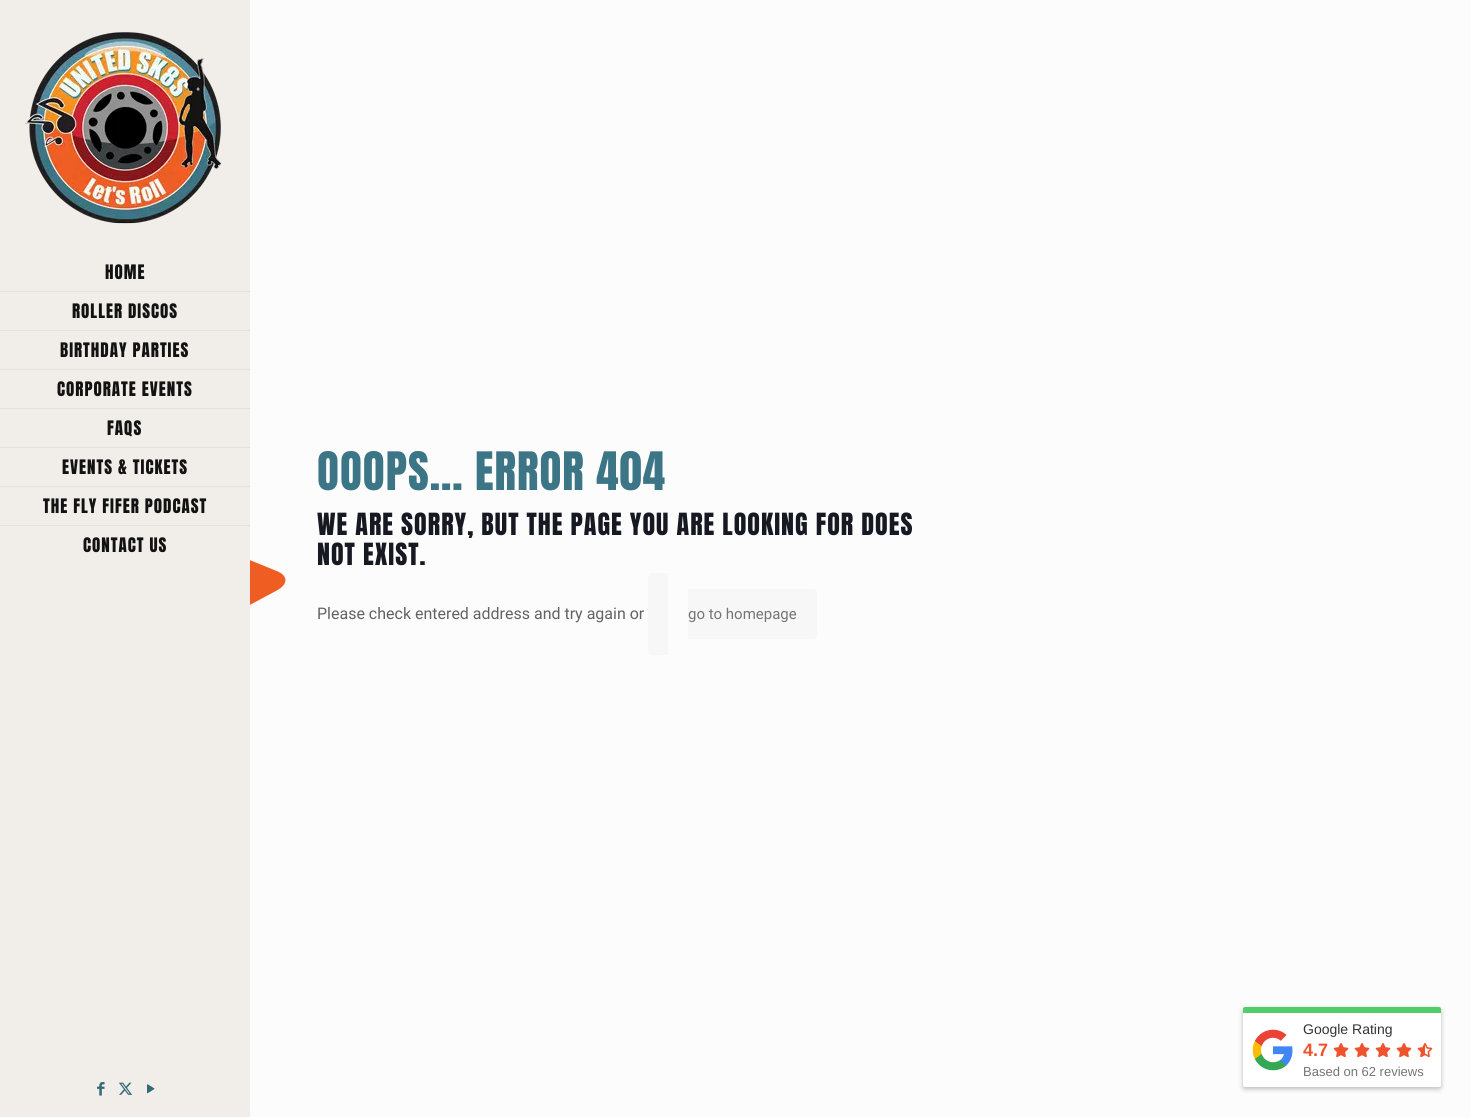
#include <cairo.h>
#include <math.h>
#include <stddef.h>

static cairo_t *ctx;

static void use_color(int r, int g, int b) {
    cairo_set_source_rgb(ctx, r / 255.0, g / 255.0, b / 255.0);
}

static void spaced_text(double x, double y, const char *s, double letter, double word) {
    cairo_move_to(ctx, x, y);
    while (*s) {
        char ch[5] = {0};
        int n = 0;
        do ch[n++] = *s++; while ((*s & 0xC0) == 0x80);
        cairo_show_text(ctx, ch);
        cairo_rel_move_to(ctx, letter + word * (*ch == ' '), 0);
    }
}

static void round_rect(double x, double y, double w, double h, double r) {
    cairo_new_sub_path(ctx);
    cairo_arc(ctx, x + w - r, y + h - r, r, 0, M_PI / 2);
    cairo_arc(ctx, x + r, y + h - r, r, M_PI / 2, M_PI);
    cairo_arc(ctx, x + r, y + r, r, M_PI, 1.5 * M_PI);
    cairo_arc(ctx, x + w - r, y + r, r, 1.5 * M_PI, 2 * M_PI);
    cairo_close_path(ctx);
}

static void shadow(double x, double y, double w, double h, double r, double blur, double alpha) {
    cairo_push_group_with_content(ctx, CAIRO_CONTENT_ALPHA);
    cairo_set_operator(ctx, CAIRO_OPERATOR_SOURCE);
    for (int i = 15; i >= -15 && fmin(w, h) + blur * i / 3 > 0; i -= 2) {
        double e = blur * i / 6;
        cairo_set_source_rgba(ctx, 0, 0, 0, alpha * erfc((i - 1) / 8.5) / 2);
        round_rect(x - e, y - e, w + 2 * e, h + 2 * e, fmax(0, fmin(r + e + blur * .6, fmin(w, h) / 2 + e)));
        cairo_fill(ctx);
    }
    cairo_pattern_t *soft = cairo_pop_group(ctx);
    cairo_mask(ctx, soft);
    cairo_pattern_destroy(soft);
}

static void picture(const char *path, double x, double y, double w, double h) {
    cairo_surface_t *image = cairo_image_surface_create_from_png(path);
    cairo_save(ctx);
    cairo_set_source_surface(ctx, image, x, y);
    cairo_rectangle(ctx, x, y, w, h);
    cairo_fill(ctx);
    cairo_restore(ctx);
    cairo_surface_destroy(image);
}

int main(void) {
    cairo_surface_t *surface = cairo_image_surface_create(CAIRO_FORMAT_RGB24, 1471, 1117);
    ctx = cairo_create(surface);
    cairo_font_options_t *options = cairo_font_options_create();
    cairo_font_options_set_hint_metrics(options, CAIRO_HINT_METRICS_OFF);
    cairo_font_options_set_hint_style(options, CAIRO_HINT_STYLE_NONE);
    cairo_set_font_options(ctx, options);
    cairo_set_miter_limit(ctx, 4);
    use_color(252, 252, 252);
    cairo_paint(ctx);
    use_color(241, 238, 233);
    cairo_rectangle(ctx, 0, 0, 250, 1117);
    cairo_fill(ctx);
    picture("img1.png", 25, 32, 197, 192);
    use_color(229, 226, 221);
    cairo_rectangle(ctx, 0, 291, 250, 1);
    cairo_fill(ctx);
    cairo_select_font_face(ctx, "Anton", CAIRO_FONT_SLANT_NORMAL, CAIRO_FONT_WEIGHT_NORMAL);
    cairo_set_font_size(ctx, 17);
    use_color(18, 18, 18);
    spaced_text(105, 279, "HOME", 1, 0);
    use_color(229, 226, 221);
    cairo_rectangle(ctx, 0, 330, 250, 1);
    cairo_fill(ctx);
    use_color(18, 18, 18);
    spaced_text(72, 318, "ROLLER DISCOS", 1, 0);
    use_color(229, 226, 221);
    cairo_rectangle(ctx, 0, 369, 250, 1);
    cairo_fill(ctx);
    use_color(18, 18, 18);
    spaced_text(60, 357, "BIRTHDAY PARTIES", 1, 0);
    use_color(229, 226, 221);
    cairo_rectangle(ctx, 0, 408, 250, 1);
    cairo_fill(ctx);
    use_color(18, 18, 18);
    spaced_text(57, 396, "CORPORATE EVENTS", 1, 0);
    use_color(229, 226, 221);
    cairo_rectangle(ctx, 0, 447, 250, 1);
    cairo_fill(ctx);
    use_color(18, 18, 18);
    spaced_text(107, 435, "FAQS", 1, 0);
    use_color(229, 226, 221);
    cairo_rectangle(ctx, 0, 486, 250, 1);
    cairo_fill(ctx);
    use_color(18, 18, 18);
    spaced_text(62, 474, "EVENTS & TICKETS", 1, 0);
    use_color(229, 226, 221);
    cairo_rectangle(ctx, 0, 525, 250, 1);
    cairo_fill(ctx);
    use_color(18, 18, 18);
    spaced_text(43, 513, "THE FLY FIFER PODCAST", 1, 0);
    spaced_text(83, 552, "CONTACT US", 1, 0);
    picture("img2.png", 97, 1082, 8, 14);
    picture("img3.png", 118, 1082, 15, 13);
    picture("img4.png", 147, 1084, 8, 10);
    picture("img5.png", 250, 560, 36, 45);
    cairo_set_font_size(ctx, 45);
    use_color(60, 117, 133);
    spaced_text(317, 490, "OOOPS... ERROR 404", 1, 0);
    cairo_set_font_size(ctx, 26);
    use_color(22, 25, 34);
    spaced_text(317, 535, "WE ARE SORRY, BUT THE PAGE YOU ARE LOOKING FOR DOES", 1, 0);
    spaced_text(317, 565, "NOT EXIST.", 1, 0);
    cairo_select_font_face(ctx, "Roboto", CAIRO_FONT_SLANT_NORMAL, CAIRO_FONT_WEIGHT_NORMAL);
    cairo_set_font_size(ctx, 16);
    use_color(98, 98, 98);
    cairo_move_to(ctx, 317, 619);
    cairo_show_text(ctx, "Please check entered address and try again or");
    use_color(247, 247, 247);
    cairo_new_path(ctx);
    cairo_move_to(ctx, 688, 589);
    cairo_line_to(ctx, 812, 589);
    cairo_curve_to(ctx, 815, 589, 817, 591, 817, 594);
    cairo_line_to(ctx, 817, 634);
    cairo_curve_to(ctx, 817, 637, 815, 639, 812, 639);
    cairo_line_to(ctx, 688, 639);
    cairo_close_path(ctx);
    cairo_fill(ctx);
    cairo_set_font_size(ctx, 15);
    use_color(116, 116, 116);
    cairo_move_to(ctx, 688, 619);
    cairo_show_text(ctx, "go to homepage");
    use_color(247, 247, 247);
    cairo_new_path(ctx);
    cairo_move_to(ctx, 653, 573);
    cairo_line_to(ctx, 668, 573);
    cairo_line_to(ctx, 668, 655);
    cairo_line_to(ctx, 653, 655);
    cairo_curve_to(ctx, 650, 655, 648, 653, 648, 650);
    cairo_line_to(ctx, 648, 578);
    cairo_curve_to(ctx, 648, 575, 650, 573, 653, 573);
    cairo_close_path(ctx);
    cairo_fill(ctx);
    use_color(0, 0, 0);
    shadow(1243, 1009, 198, 80, 2, 2.5, 0.26);
    use_color(79, 206, 106);
    cairo_new_path(ctx);
    cairo_move_to(ctx, 1245, 1007);
    cairo_line_to(ctx, 1439, 1007);
    cairo_curve_to(ctx, 1440, 1007, 1441, 1008, 1441, 1009);
    cairo_line_to(ctx, 1441, 1013);
    cairo_line_to(ctx, 1243, 1013);
    cairo_line_to(ctx, 1243, 1009);
    cairo_curve_to(ctx, 1243, 1008, 1244, 1007, 1245, 1007);
    cairo_close_path(ctx);
    cairo_fill(ctx);
    use_color(255, 255, 255);
    cairo_new_path(ctx);
    cairo_move_to(ctx, 1243, 1013);
    cairo_line_to(ctx, 1441, 1013);
    cairo_line_to(ctx, 1441, 1085);
    cairo_curve_to(ctx, 1441, 1086, 1440, 1087, 1439, 1087);
    cairo_line_to(ctx, 1245, 1087);
    cairo_curve_to(ctx, 1244, 1087, 1243, 1086, 1243, 1085);
    cairo_close_path(ctx);
    cairo_fill(ctx);
    picture("img6.png", 1252, 1029, 41, 42);
    cairo_select_font_face(ctx, "Liberation Sans", CAIRO_FONT_SLANT_NORMAL, CAIRO_FONT_WEIGHT_NORMAL);
    cairo_set_font_size(ctx, 14);
    use_color(51, 51, 51);
    cairo_move_to(ctx, 1303, 1034);
    cairo_show_text(ctx, "Google Rating");
    cairo_select_font_face(ctx, "Liberation Sans", CAIRO_FONT_SLANT_NORMAL, CAIRO_FONT_WEIGHT_BOLD);
    cairo_set_font_size(ctx, 18);
    use_color(239, 83, 45);
    cairo_move_to(ctx, 1303, 1056);
    cairo_show_text(ctx, "4.7");
    picture("img7.png", 1333, 1043, 16, 15);
    picture("img7.png", 1354, 1043, 16, 15);
    picture("img7.png", 1375, 1043, 16, 15);
    picture("img7.png", 1396, 1043, 16, 15);
    picture("img8.png", 1417, 1043, 16, 15);
    cairo_select_font_face(ctx, "Liberation Sans", CAIRO_FONT_SLANT_NORMAL, CAIRO_FONT_WEIGHT_NORMAL);
    cairo_set_font_size(ctx, 13);
    use_color(116, 116, 116);
    cairo_move_to(ctx, 1303, 1076);
    cairo_show_text(ctx, "Based on 62 reviews");
    cairo_surface_write_to_png(surface, "result.png");
    cairo_font_options_destroy(options);
    cairo_destroy(ctx);
    cairo_surface_destroy(surface);
    return 0;
}
